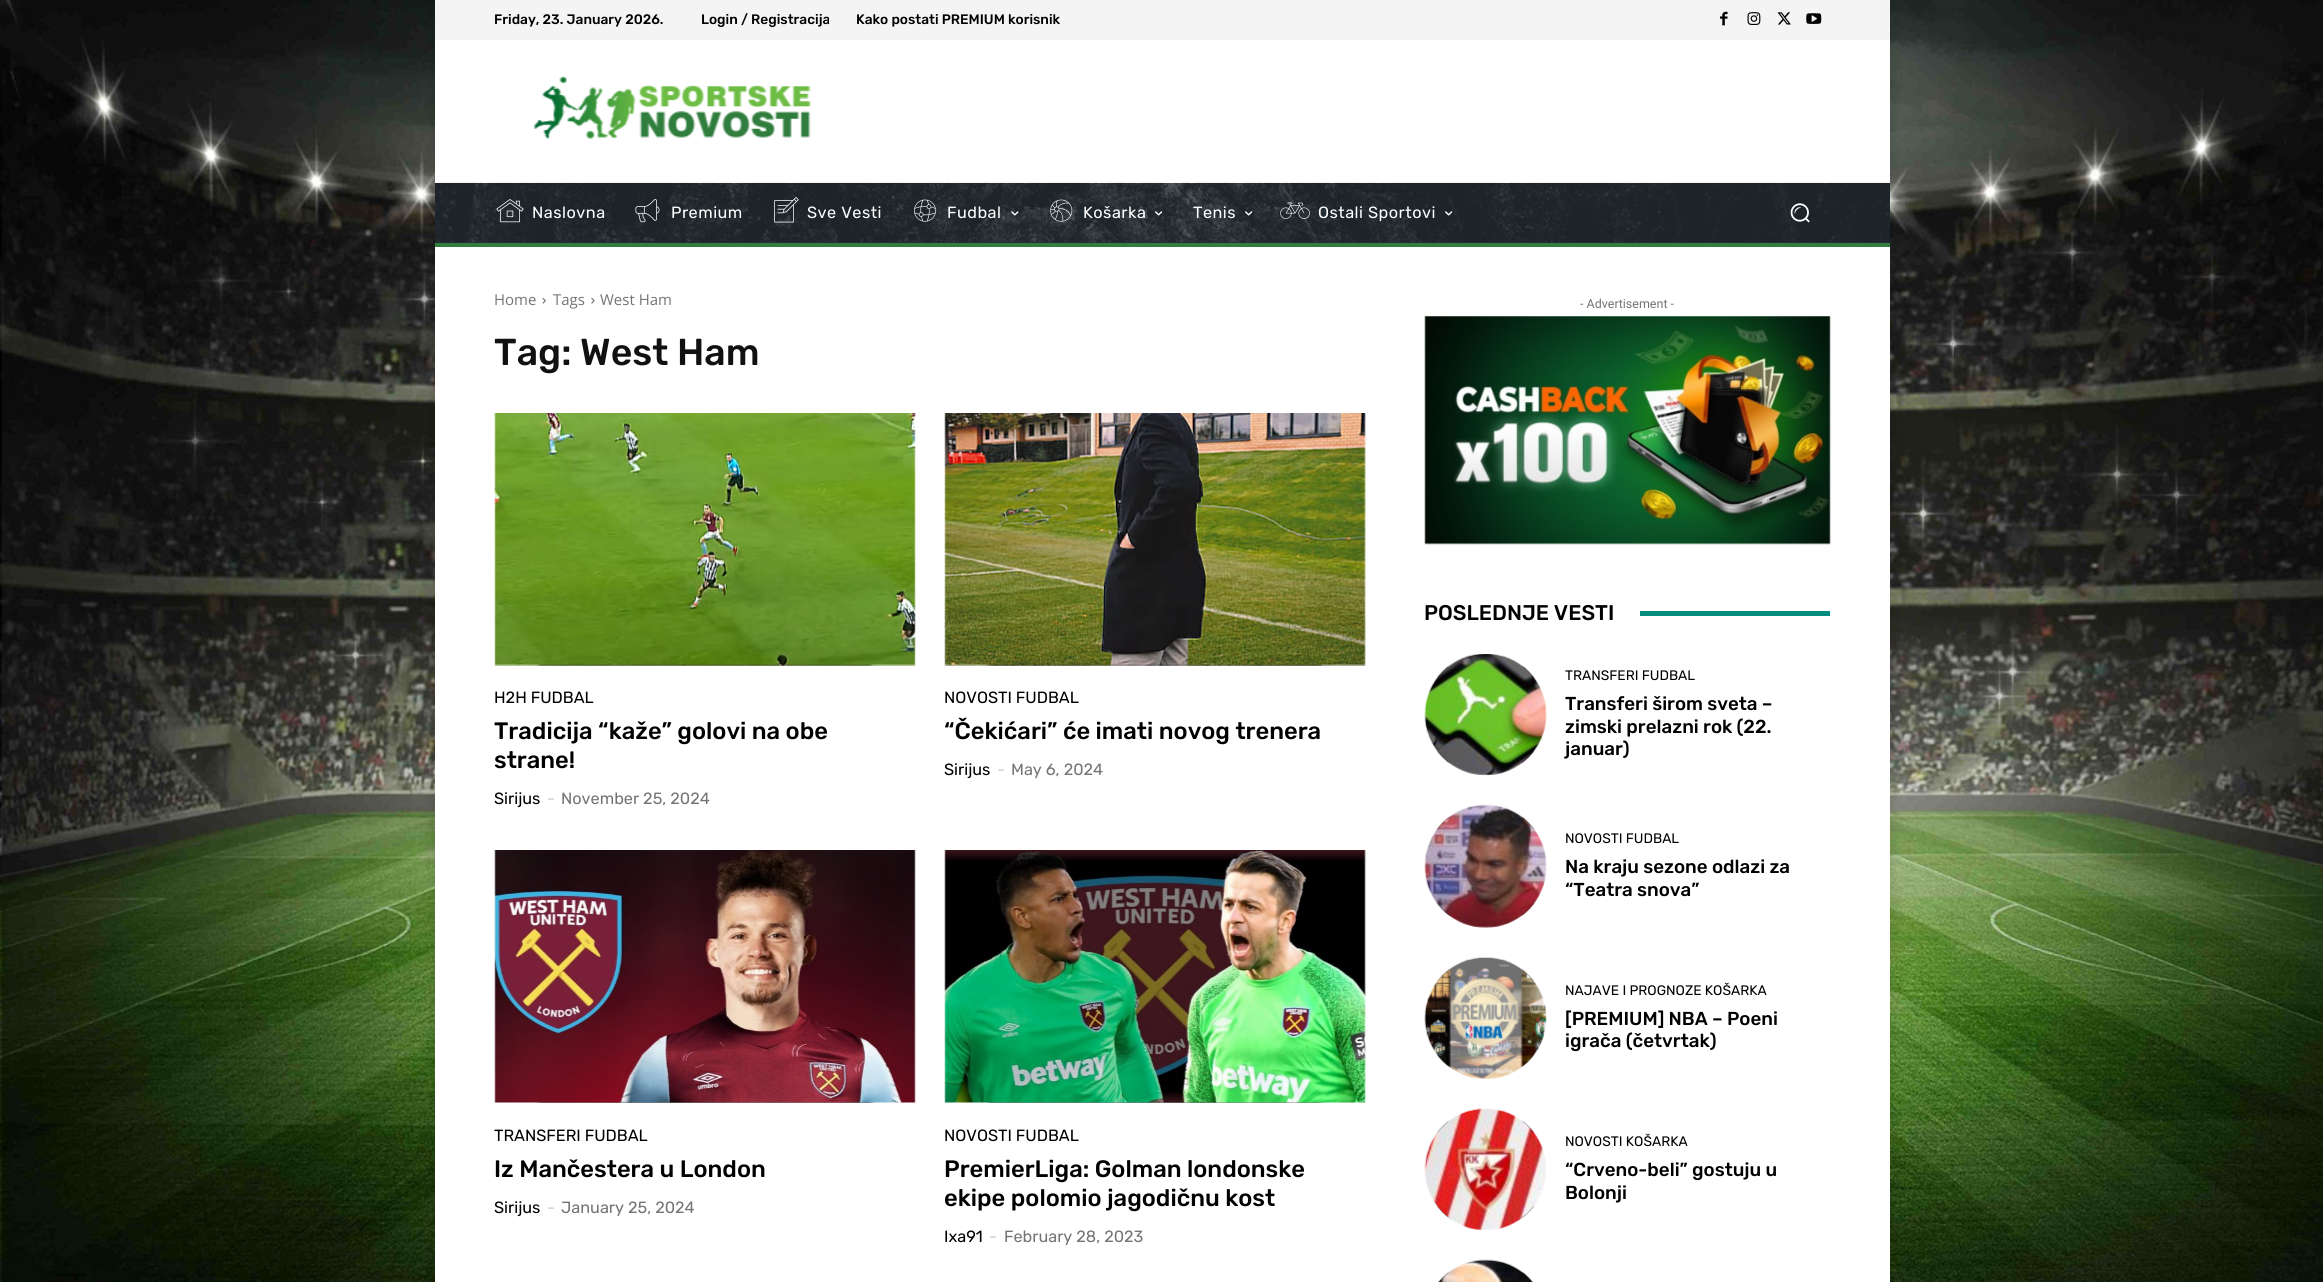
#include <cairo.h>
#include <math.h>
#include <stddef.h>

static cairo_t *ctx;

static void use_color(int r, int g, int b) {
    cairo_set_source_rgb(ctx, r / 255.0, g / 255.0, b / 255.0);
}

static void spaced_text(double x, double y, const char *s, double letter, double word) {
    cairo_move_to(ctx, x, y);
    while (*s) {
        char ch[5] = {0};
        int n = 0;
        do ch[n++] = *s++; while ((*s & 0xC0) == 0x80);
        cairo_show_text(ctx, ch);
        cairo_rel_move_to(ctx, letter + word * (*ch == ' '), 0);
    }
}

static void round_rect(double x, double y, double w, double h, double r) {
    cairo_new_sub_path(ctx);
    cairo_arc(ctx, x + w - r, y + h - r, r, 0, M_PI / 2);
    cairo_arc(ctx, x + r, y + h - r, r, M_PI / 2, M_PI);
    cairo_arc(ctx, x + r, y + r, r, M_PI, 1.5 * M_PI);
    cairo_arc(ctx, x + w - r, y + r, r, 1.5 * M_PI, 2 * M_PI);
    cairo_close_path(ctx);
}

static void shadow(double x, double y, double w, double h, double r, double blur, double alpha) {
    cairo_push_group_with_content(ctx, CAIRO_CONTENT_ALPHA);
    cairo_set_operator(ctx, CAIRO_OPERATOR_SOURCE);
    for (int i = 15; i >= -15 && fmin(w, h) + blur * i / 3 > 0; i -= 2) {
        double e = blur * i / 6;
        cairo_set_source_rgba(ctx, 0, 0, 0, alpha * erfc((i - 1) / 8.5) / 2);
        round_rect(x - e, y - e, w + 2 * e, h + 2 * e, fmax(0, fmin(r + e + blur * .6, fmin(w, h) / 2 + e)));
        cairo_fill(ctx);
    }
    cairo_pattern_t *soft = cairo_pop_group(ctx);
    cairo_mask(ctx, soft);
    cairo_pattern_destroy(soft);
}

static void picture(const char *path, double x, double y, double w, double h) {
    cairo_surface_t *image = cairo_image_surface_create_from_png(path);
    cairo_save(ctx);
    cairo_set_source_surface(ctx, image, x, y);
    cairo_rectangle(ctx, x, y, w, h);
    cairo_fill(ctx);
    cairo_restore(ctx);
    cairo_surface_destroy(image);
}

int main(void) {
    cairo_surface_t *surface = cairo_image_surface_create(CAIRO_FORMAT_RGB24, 2323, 1282);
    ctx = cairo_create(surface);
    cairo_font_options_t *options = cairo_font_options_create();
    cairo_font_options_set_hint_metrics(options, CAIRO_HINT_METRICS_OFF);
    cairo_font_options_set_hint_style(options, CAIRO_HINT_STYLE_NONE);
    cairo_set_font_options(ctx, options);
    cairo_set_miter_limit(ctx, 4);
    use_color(255, 255, 255);
    cairo_paint(ctx);
    picture("img1.png", 0, 0, 2323, 1282);
    use_color(0, 0, 0);
    shadow(431, 254, 1463, 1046, 0, 6, 0.12);
    use_color(255, 255, 255);
    cairo_rectangle(ctx, 435, 258, 1455, 1024);
    cairo_fill(ctx);
    use_color(0, 0, 0);
    shadow(431, -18, 1463, 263, 0, 6, 0.12);
    use_color(244, 244, 244);
    cairo_rectangle(ctx, 435, 0, 1455, 40);
    cairo_fill(ctx);
    cairo_select_font_face(ctx, "Rubik Medium", CAIRO_FONT_SLANT_NORMAL, CAIRO_FONT_WEIGHT_NORMAL);
    cairo_set_font_size(ctx, 13.75);
    use_color(0, 0, 0);
    cairo_move_to(ctx, 494, 24);
    cairo_show_text(ctx, "Friday, 23. January 2026.");
    cairo_move_to(ctx, 701, 24);
    cairo_show_text(ctx, "Login / Registracija");
    cairo_move_to(ctx, 856, 24);
    cairo_show_text(ctx, "Kako postati PREMIUM korisnik");
    picture("img2.png", 1720, 11, 8, 15);
    picture("img3.png", 1747, 12, 14, 13);
    picture("img4.png", 1777, 12, 14, 13);
    picture("img5.png", 1806, 13, 16, 11);
    use_color(255, 255, 255);
    cairo_rectangle(ctx, 435, 40, 1455, 218);
    cairo_fill(ctx);
    picture("img6.png", 533, 76, 278, 63);
    use_color(35, 45, 53);
    cairo_rectangle(ctx, 435, 183, 1455, 60);
    cairo_fill(ctx);
    picture("img7.png", 435, 182, 1455, 61);
    picture("img8.png", 496, 199, 28, 24);
    cairo_select_font_face(ctx, "Rubik", CAIRO_FONT_SLANT_NORMAL, CAIRO_FONT_WEIGHT_NORMAL);
    cairo_set_font_size(ctx, 16.25);
    use_color(255, 255, 255);
    spaced_text(532, 218, "Naslovna", 0.5, 0);
    picture("img9.png", 635, 199, 25, 24);
    spaced_text(671, 218, "Premium", 0.5, 0);
    picture("img10.png", 774, 197, 25, 26);
    spaced_text(807, 218, "Sve Vesti", 0.5, 0);
    picture("img11.png", 914, 199, 22, 23);
    spaced_text(947, 218, "Fudbal", 0.5, 0);
    picture("img12.png", 1011, 211, 8, 5);
    picture("img13.png", 1050, 199, 23, 23);
    spaced_text(1083, 218, "Košarka", 0.5, 0);
    picture("img14.png", 1155, 211, 8, 5);
    spaced_text(1193, 218, "Tenis", 0.5, 0);
    picture("img15.png", 1245, 211, 8, 5);
    picture("img16.png", 1280, 202, 30, 17);
    spaced_text(1318, 218, "Ostali Sportovi", 0.5, 0);
    picture("img17.png", 1445, 211, 8, 5);
    picture("img18.png", 1790, 203, 20, 20);
    use_color(48, 125, 61);
    cairo_rectangle(ctx, 435, 243, 1455, 4);
    cairo_fill(ctx);
    cairo_select_font_face(ctx, "Open Sans", CAIRO_FONT_SLANT_NORMAL, CAIRO_FONT_WEIGHT_NORMAL);
    cairo_set_font_size(ctx, 15);
    use_color(116, 116, 116);
    cairo_move_to(ctx, 494, 305);
    cairo_show_text(ctx, "Home");
    picture("img19.png", 542, 297, 4, 7);
    cairo_move_to(ctx, 553, 305);
    cairo_show_text(ctx, "Tags");
    picture("img20.png", 591, 297, 4, 7);
    cairo_move_to(ctx, 600, 305);
    cairo_show_text(ctx, "West Ham");
    cairo_select_font_face(ctx, "Rubik Medium", CAIRO_FONT_SLANT_NORMAL, CAIRO_FONT_WEIGHT_NORMAL);
    cairo_set_font_size(ctx, 37.5);
    use_color(17, 17, 17);
    cairo_move_to(ctx, 494, 365);
    cairo_show_text(ctx, "Tag: West Ham");
    picture("img22.png", 531, 664, 348, 2);
    picture("img21.png", 494, 413, 422, 253);
    cairo_select_font_face(ctx, "Rubik", CAIRO_FONT_SLANT_NORMAL, CAIRO_FONT_WEIGHT_NORMAL);
    cairo_set_font_size(ctx, 16.25);
    use_color(0, 0, 0);
    cairo_move_to(ctx, 494, 703);
    cairo_show_text(ctx, "H2H FUDBAL");
    cairo_select_font_face(ctx, "Rubik Medium", CAIRO_FONT_SLANT_NORMAL, CAIRO_FONT_WEIGHT_NORMAL);
    cairo_set_font_size(ctx, 23.75);
    cairo_move_to(ctx, 494, 739);
    cairo_show_text(ctx, "Tradicija “kaže” golovi na obe");
    cairo_move_to(ctx, 494, 768);
    cairo_show_text(ctx, "strane!");
    cairo_select_font_face(ctx, "Rubik", CAIRO_FONT_SLANT_NORMAL, CAIRO_FONT_WEIGHT_NORMAL);
    cairo_set_font_size(ctx, 16.25);
    cairo_move_to(ctx, 494, 804);
    cairo_show_text(ctx, "Sirijus");
    use_color(204, 204, 204);
    cairo_move_to(ctx, 547, 804);
    cairo_show_text(ctx, "-");
    use_color(116, 116, 116);
    cairo_move_to(ctx, 561, 804);
    cairo_show_text(ctx, "November 25, 2024");
    picture("img24.png", 981, 664, 348, 2);
    picture("img23.png", 944, 413, 422, 253);
    use_color(0, 0, 0);
    cairo_move_to(ctx, 944, 703);
    cairo_show_text(ctx, "NOVOSTI FUDBAL");
    cairo_select_font_face(ctx, "Rubik Medium", CAIRO_FONT_SLANT_NORMAL, CAIRO_FONT_WEIGHT_NORMAL);
    cairo_set_font_size(ctx, 23.75);
    cairo_move_to(ctx, 944, 739);
    cairo_show_text(ctx, "“Čekićari” će imati novog trenera");
    cairo_select_font_face(ctx, "Rubik", CAIRO_FONT_SLANT_NORMAL, CAIRO_FONT_WEIGHT_NORMAL);
    cairo_set_font_size(ctx, 16.25);
    cairo_move_to(ctx, 944, 775);
    cairo_show_text(ctx, "Sirijus");
    use_color(204, 204, 204);
    cairo_move_to(ctx, 997, 775);
    cairo_show_text(ctx, "-");
    use_color(116, 116, 116);
    cairo_move_to(ctx, 1011, 775);
    cairo_show_text(ctx, "May 6, 2024");
    picture("img26.png", 533, 1102, 344, 1);
    picture("img25.png", 494, 850, 422, 253);
    use_color(0, 0, 0);
    cairo_move_to(ctx, 494, 1141);
    cairo_show_text(ctx, "TRANSFERI FUDBAL");
    cairo_select_font_face(ctx, "Rubik Medium", CAIRO_FONT_SLANT_NORMAL, CAIRO_FONT_WEIGHT_NORMAL);
    cairo_set_font_size(ctx, 23.75);
    cairo_move_to(ctx, 494, 1177);
    cairo_show_text(ctx, "Iz Mančestera u London");
    cairo_select_font_face(ctx, "Rubik", CAIRO_FONT_SLANT_NORMAL, CAIRO_FONT_WEIGHT_NORMAL);
    cairo_set_font_size(ctx, 16.25);
    cairo_move_to(ctx, 494, 1213);
    cairo_show_text(ctx, "Sirijus");
    use_color(204, 204, 204);
    cairo_move_to(ctx, 547, 1213);
    cairo_show_text(ctx, "-");
    use_color(116, 116, 116);
    cairo_move_to(ctx, 561, 1213);
    cairo_show_text(ctx, "January 25, 2024");
    picture("img28.png", 983, 1102, 344, 1);
    picture("img27.png", 944, 850, 422, 253);
    use_color(0, 0, 0);
    cairo_move_to(ctx, 944, 1141);
    cairo_show_text(ctx, "NOVOSTI FUDBAL");
    cairo_select_font_face(ctx, "Rubik Medium", CAIRO_FONT_SLANT_NORMAL, CAIRO_FONT_WEIGHT_NORMAL);
    cairo_set_font_size(ctx, 23.75);
    cairo_move_to(ctx, 944, 1177);
    cairo_show_text(ctx, "PremierLiga: Golman londonske");
    cairo_move_to(ctx, 944, 1206);
    cairo_show_text(ctx, "ekipe polomio jagodičnu kost");
    cairo_select_font_face(ctx, "Rubik", CAIRO_FONT_SLANT_NORMAL, CAIRO_FONT_WEIGHT_NORMAL);
    cairo_set_font_size(ctx, 16.25);
    cairo_move_to(ctx, 944, 1242);
    cairo_show_text(ctx, "Ixa91");
    use_color(204, 204, 204);
    cairo_move_to(ctx, 989, 1242);
    cairo_show_text(ctx, "-");
    use_color(116, 116, 116);
    cairo_move_to(ctx, 1004, 1242);
    cairo_show_text(ctx, "February 28, 2023");
    cairo_select_font_face(ctx, "Roboto", CAIRO_FONT_SLANT_NORMAL, CAIRO_FONT_WEIGHT_NORMAL);
    cairo_set_font_size(ctx, 12.5);
    cairo_move_to(ctx, 1580, 308);
    cairo_show_text(ctx, "- Advertisement -");
    picture("img29.png", 1424, 316, 407, 229);
    cairo_select_font_face(ctx, "Rubik Medium", CAIRO_FONT_SLANT_NORMAL, CAIRO_FONT_WEIGHT_NORMAL);
    cairo_set_font_size(ctx, 21.25);
    use_color(0, 0, 0);
    cairo_move_to(ctx, 1424, 620);
    cairo_show_text(ctx, "POSLEDNJE VESTI");
    use_color(0, 141, 127);
    cairo_rectangle(ctx, 1640, 611, 190, 5);
    cairo_fill(ctx);
    picture("img31.png", 1435, 665, 101, 102);
    picture("img30.png", 1424, 654, 123, 122);
    cairo_select_font_face(ctx, "Rubik", CAIRO_FONT_SLANT_NORMAL, CAIRO_FONT_WEIGHT_NORMAL);
    cairo_set_font_size(ctx, 13.75);
    use_color(0, 0, 0);
    cairo_move_to(ctx, 1565, 680);
    cairo_show_text(ctx, "TRANSFERI FUDBAL");
    cairo_select_font_face(ctx, "Rubik Medium", CAIRO_FONT_SLANT_NORMAL, CAIRO_FONT_WEIGHT_NORMAL);
    cairo_set_font_size(ctx, 18.75);
    cairo_move_to(ctx, 1565, 710);
    cairo_show_text(ctx, "Transferi širom sveta –");
    cairo_move_to(ctx, 1565, 733);
    cairo_show_text(ctx, "zimski prelazni rok (22.");
    cairo_move_to(ctx, 1565, 755);
    cairo_show_text(ctx, "januar)");
    picture("img33.png", 1435, 816, 102, 103);
    picture("img32.png", 1424, 804, 123, 124);
    cairo_select_font_face(ctx, "Rubik", CAIRO_FONT_SLANT_NORMAL, CAIRO_FONT_WEIGHT_NORMAL);
    cairo_set_font_size(ctx, 13.75);
    cairo_move_to(ctx, 1565, 843);
    cairo_show_text(ctx, "NOVOSTI FUDBAL");
    cairo_select_font_face(ctx, "Rubik Medium", CAIRO_FONT_SLANT_NORMAL, CAIRO_FONT_WEIGHT_NORMAL);
    cairo_set_font_size(ctx, 18.75);
    cairo_move_to(ctx, 1565, 873);
    cairo_show_text(ctx, "Na kraju sezone odlazi za");
    cairo_move_to(ctx, 1565, 896);
    cairo_show_text(ctx, "“Teatra snova”");
    picture("img35.png", 1435, 969, 101, 101);
    picture("img34.png", 1424, 957, 123, 122);
    cairo_select_font_face(ctx, "Rubik", CAIRO_FONT_SLANT_NORMAL, CAIRO_FONT_WEIGHT_NORMAL);
    cairo_set_font_size(ctx, 13.75);
    cairo_move_to(ctx, 1565, 995);
    cairo_show_text(ctx, "NAJAVE I PROGNOZE KOŠARKA");
    cairo_select_font_face(ctx, "Rubik Medium", CAIRO_FONT_SLANT_NORMAL, CAIRO_FONT_WEIGHT_NORMAL);
    cairo_set_font_size(ctx, 18.75);
    cairo_move_to(ctx, 1565, 1025);
    cairo_show_text(ctx, "[PREMIUM] NBA – Poeni");
    cairo_move_to(ctx, 1565, 1047);
    cairo_show_text(ctx, "igrača (četvrtak)");
    picture("img37.png", 1435, 1120, 101, 102);
    picture("img36.png", 1424, 1108, 123, 122);
    cairo_select_font_face(ctx, "Rubik", CAIRO_FONT_SLANT_NORMAL, CAIRO_FONT_WEIGHT_NORMAL);
    cairo_set_font_size(ctx, 13.75);
    cairo_move_to(ctx, 1565, 1146);
    cairo_show_text(ctx, "NOVOSTI KOŠARKA");
    cairo_select_font_face(ctx, "Rubik Medium", CAIRO_FONT_SLANT_NORMAL, CAIRO_FONT_WEIGHT_NORMAL);
    cairo_set_font_size(ctx, 18.75);
    cairo_move_to(ctx, 1565, 1176);
    cairo_show_text(ctx, "“Crveno-beli” gostuju u");
    cairo_move_to(ctx, 1565, 1199);
    cairo_show_text(ctx, "Bolonji");
    picture("img39.png", 1438, 1271, 95, 11);
    picture("img38.png", 1438, 1259, 95, 23);
    cairo_surface_write_to_png(surface, "result.png");
    cairo_font_options_destroy(options);
    cairo_destroy(ctx);
    cairo_surface_destroy(surface);
    return 0;
}
